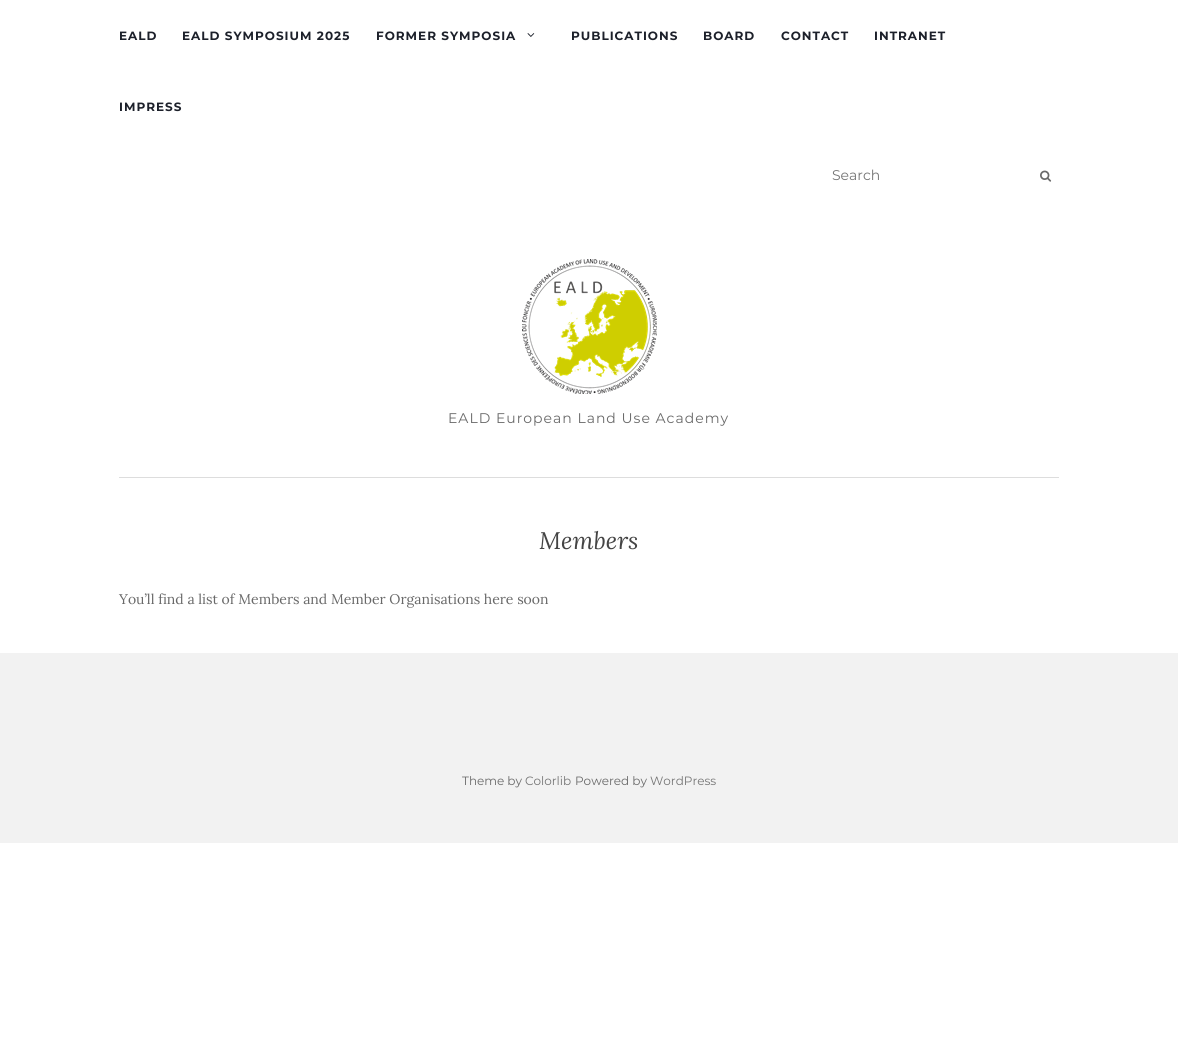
#include <cairo.h>
#include <math.h>
#include <stddef.h>

static cairo_t *ctx;

static void use_color(int r, int g, int b) {
    cairo_set_source_rgb(ctx, r / 255.0, g / 255.0, b / 255.0);
}

static void spaced_text(double x, double y, const char *s, double letter, double word) {
    cairo_move_to(ctx, x, y);
    while (*s) {
        char ch[5] = {0};
        int n = 0;
        do ch[n++] = *s++; while ((*s & 0xC0) == 0x80);
        cairo_show_text(ctx, ch);
        cairo_rel_move_to(ctx, letter + word * (*ch == ' '), 0);
    }
}

static void picture(const char *path, double x, double y, double w, double h) {
    cairo_surface_t *image = cairo_image_surface_create_from_png(path);
    cairo_save(ctx);
    cairo_set_source_surface(ctx, image, x, y);
    cairo_rectangle(ctx, x, y, w, h);
    cairo_fill(ctx);
    cairo_restore(ctx);
    cairo_surface_destroy(image);
}

int main(void) {
    cairo_surface_t *surface = cairo_image_surface_create(CAIRO_FORMAT_RGB24, 1178, 1049);
    ctx = cairo_create(surface);
    cairo_font_options_t *options = cairo_font_options_create();
    cairo_font_options_set_hint_metrics(options, CAIRO_HINT_METRICS_OFF);
    cairo_font_options_set_hint_style(options, CAIRO_HINT_STYLE_NONE);
    cairo_set_font_options(ctx, options);
    cairo_set_miter_limit(ctx, 4);
    use_color(255, 255, 255);
    cairo_paint(ctx);
    cairo_select_font_face(ctx, "Montserrat", CAIRO_FONT_SLANT_NORMAL, CAIRO_FONT_WEIGHT_BOLD);
    cairo_set_font_size(ctx, 12);
    use_color(28, 32, 42);
    spaced_text(119, 40, "EALD", 1, 0);
    spaced_text(182, 40, "EALD SYMPOSIUM 2025", 1, 0);
    spaced_text(376, 40, "FORMER SYMPOSIA", 1, 0);
    picture("img1.png", 527, 33, 8, 4);
    spaced_text(571, 40, "PUBLICATIONS", 1, 0);
    spaced_text(703, 40, "BOARD", 1, 0);
    spaced_text(781, 40, "CONTACT", 1, 0);
    spaced_text(874, 40, "INTRANET", 1, 0);
    spaced_text(119, 111, "IMPRESS", 1, 0);
    cairo_select_font_face(ctx, "Montserrat", CAIRO_FONT_SLANT_NORMAL, CAIRO_FONT_WEIGHT_NORMAL);
    cairo_set_font_size(ctx, 14);
    use_color(117, 117, 117);
    cairo_move_to(ctx, 832, 180);
    cairo_show_text(ctx, "Search");
    picture("img2.png", 1040, 170, 12, 12);
    picture("img3.png", 522, 259, 135, 135);
    use_color(105, 105, 105);
    spaced_text(448, 423, "EALD European Land Use Academy", 1, 0);
    use_color(221, 221, 221);
    cairo_rectangle(ctx, 119, 477, 940, 1);
    cairo_fill(ctx);
    cairo_select_font_face(ctx, "Lora", CAIRO_FONT_SLANT_ITALIC, CAIRO_FONT_WEIGHT_NORMAL);
    cairo_set_font_size(ctx, 24);
    use_color(68, 68, 68);
    cairo_move_to(ctx, 539, 549);
    cairo_show_text(ctx, "Members");
    cairo_select_font_face(ctx, "Lora", CAIRO_FONT_SLANT_NORMAL, CAIRO_FONT_WEIGHT_NORMAL);
    cairo_set_font_size(ctx, 14);
    use_color(105, 105, 105);
    cairo_move_to(ctx, 119, 604);
    cairo_show_text(ctx, "You’ll find a list of Members and Member Organisations here soon");
    use_color(242, 242, 242);
    cairo_rectangle(ctx, 0, 653, 1178, 190);
    cairo_fill(ctx);
    cairo_select_font_face(ctx, "Montserrat", CAIRO_FONT_SLANT_NORMAL, CAIRO_FONT_WEIGHT_NORMAL);
    cairo_set_font_size(ctx, 12);
    use_color(105, 105, 105);
    cairo_move_to(ctx, 462, 785);
    cairo_show_text(ctx, "Theme by");
    use_color(117, 117, 117);
    cairo_move_to(ctx, 525, 785);
    cairo_show_text(ctx, "Colorlib");
    use_color(105, 105, 105);
    cairo_move_to(ctx, 575, 785);
    cairo_show_text(ctx, "Powered by");
    use_color(117, 117, 117);
    cairo_move_to(ctx, 650, 785);
    cairo_show_text(ctx, "WordPress");
    cairo_surface_write_to_png(surface, "result.png");
    cairo_font_options_destroy(options);
    cairo_destroy(ctx);
    cairo_surface_destroy(surface);
    return 0;
}
